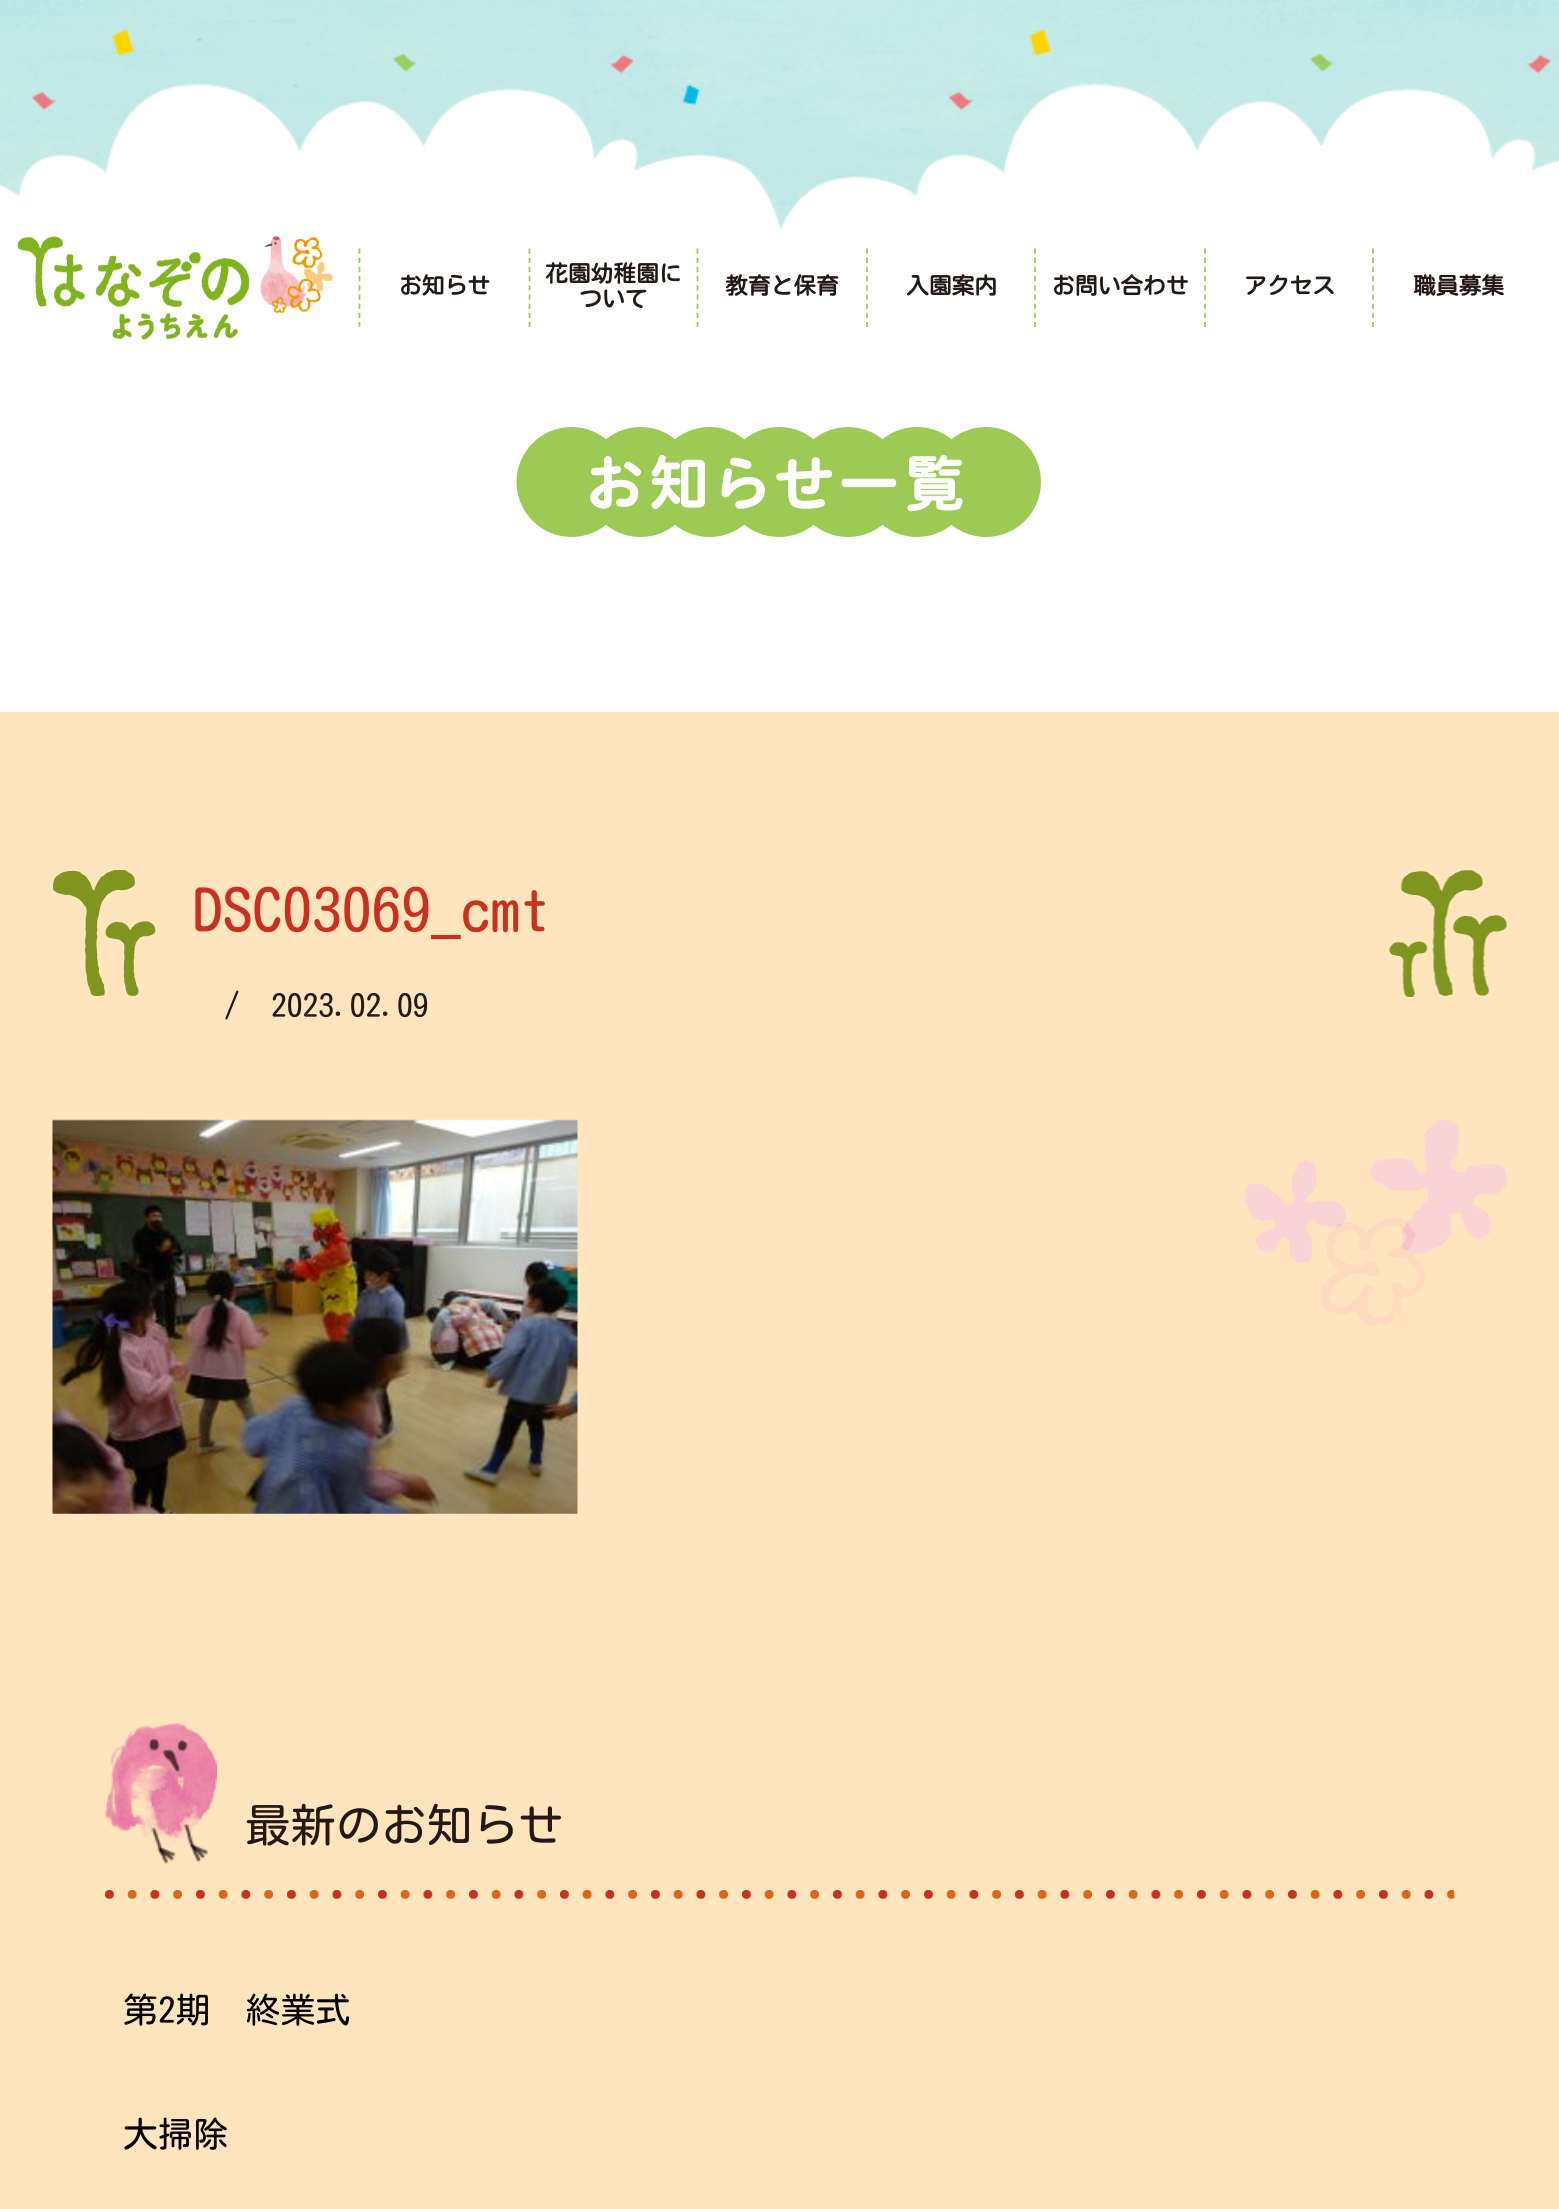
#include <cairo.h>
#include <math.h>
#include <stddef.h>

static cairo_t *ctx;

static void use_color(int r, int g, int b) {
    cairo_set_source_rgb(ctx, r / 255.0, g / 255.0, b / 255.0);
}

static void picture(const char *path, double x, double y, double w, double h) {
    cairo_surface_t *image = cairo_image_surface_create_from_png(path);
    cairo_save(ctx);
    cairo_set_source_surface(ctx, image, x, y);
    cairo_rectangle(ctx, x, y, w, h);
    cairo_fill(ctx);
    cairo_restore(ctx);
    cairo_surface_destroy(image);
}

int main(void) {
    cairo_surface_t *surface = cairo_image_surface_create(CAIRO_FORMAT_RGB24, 1559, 2209);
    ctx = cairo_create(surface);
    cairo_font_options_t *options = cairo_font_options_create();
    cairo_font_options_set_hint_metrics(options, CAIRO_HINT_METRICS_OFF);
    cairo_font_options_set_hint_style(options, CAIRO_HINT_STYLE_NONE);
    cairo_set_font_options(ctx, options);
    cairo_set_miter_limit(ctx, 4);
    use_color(255, 255, 255);
    cairo_paint(ctx);
    picture("img1.png", 0, 0, 1559, 230);
    picture("img2.png", 17, 236, 316, 104);
    cairo_new_path(ctx);
    cairo_move_to(ctx, 359.5, 248.5);
    cairo_line_to(ctx, 359.5, 327);
    use_color(156, 202, 84);
    cairo_set_line_width(ctx, 1.8);
    cairo_set_dash(ctx, (double[]){5.25, 3.94}, 2, 0);
    cairo_stroke(ctx);
    cairo_select_font_face(ctx, "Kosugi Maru", CAIRO_FONT_SLANT_NORMAL, CAIRO_FONT_WEIGHT_BOLD);
    cairo_set_font_size(ctx, 22.75);
    use_color(35, 24, 21);
    cairo_move_to(ctx, 399, 294);
    cairo_show_text(ctx, "お知らせ");
    cairo_new_path(ctx);
    cairo_move_to(ctx, 529.5, 248.5);
    cairo_line_to(ctx, 529.5, 327);
    use_color(156, 202, 84);
    cairo_stroke(ctx);
    use_color(35, 24, 21);
    cairo_move_to(ctx, 545, 282);
    cairo_show_text(ctx, "花園幼稚園に");
    cairo_move_to(ctx, 579, 307);
    cairo_show_text(ctx, "ついて");
    cairo_new_path(ctx);
    cairo_move_to(ctx, 697.5, 248.5);
    cairo_line_to(ctx, 697.5, 327);
    use_color(156, 202, 84);
    cairo_stroke(ctx);
    use_color(35, 24, 21);
    cairo_move_to(ctx, 725, 294);
    cairo_show_text(ctx, "教育と保育");
    cairo_new_path(ctx);
    cairo_move_to(ctx, 867, 248.5);
    cairo_line_to(ctx, 867, 327);
    use_color(156, 202, 84);
    cairo_stroke(ctx);
    use_color(35, 24, 21);
    cairo_move_to(ctx, 906, 294);
    cairo_show_text(ctx, "入園案内");
    cairo_new_path(ctx);
    cairo_move_to(ctx, 1035, 248.5);
    cairo_line_to(ctx, 1035, 327);
    use_color(156, 202, 84);
    cairo_stroke(ctx);
    use_color(35, 24, 21);
    cairo_move_to(ctx, 1052, 294);
    cairo_show_text(ctx, "お問い合わせ");
    cairo_new_path(ctx);
    cairo_move_to(ctx, 1205, 248.5);
    cairo_line_to(ctx, 1205, 327);
    use_color(156, 202, 84);
    cairo_stroke(ctx);
    use_color(35, 24, 21);
    cairo_move_to(ctx, 1244, 294);
    cairo_show_text(ctx, "アクセス");
    cairo_new_path(ctx);
    cairo_move_to(ctx, 1373, 248.5);
    cairo_line_to(ctx, 1373, 327);
    use_color(156, 202, 84);
    cairo_stroke(ctx);
    use_color(35, 24, 21);
    cairo_move_to(ctx, 1413, 294);
    cairo_show_text(ctx, "職員募集");
    picture("img3.png", 516, 427, 525, 110);
    use_color(255, 229, 189);
    cairo_rectangle(ctx, 0, 712, 1559, 1497);
    cairo_fill(ctx);
    picture("img4.png", 53, 870, 103, 126);
    cairo_select_font_face(ctx, "Kosugi Maru", CAIRO_FONT_SLANT_NORMAL, CAIRO_FONT_WEIGHT_NORMAL);
    cairo_set_font_size(ctx, 59.5);
    use_color(200, 49, 32);
    cairo_move_to(ctx, 193, 932);
    cairo_show_text(ctx, "DSC03069_cmt");
    picture("img5.png", 1389, 870, 118, 127);
    cairo_set_font_size(ctx, 31.5);
    use_color(35, 24, 21);
    cairo_move_to(ctx, 224, 1017);
    cairo_show_text(ctx, "/");
    cairo_move_to(ctx, 271, 1017);
    cairo_show_text(ctx, "2023.02.09");
    picture("img6.png", 52, 1119, 526, 395);
    picture("img7.png", 1244, 1120, 263, 206);
    picture("img8.png", 105, 1890, 1350, 9);
    picture("img9.png", 105, 1723, 112, 141);
    cairo_set_font_size(ctx, 45.5);
    cairo_move_to(ctx, 245, 1842);
    cairo_show_text(ctx, "最新のお知らせ");
    cairo_set_font_size(ctx, 35);
    use_color(0, 0, 0);
    cairo_move_to(ctx, 123, 2023);
    cairo_show_text(ctx, "第2期　終業式");
    cairo_move_to(ctx, 123, 2147);
    cairo_show_text(ctx, "大掃除");
    cairo_surface_write_to_png(surface, "result.png");
    cairo_font_options_destroy(options);
    cairo_destroy(ctx);
    cairo_surface_destroy(surface);
    return 0;
}
